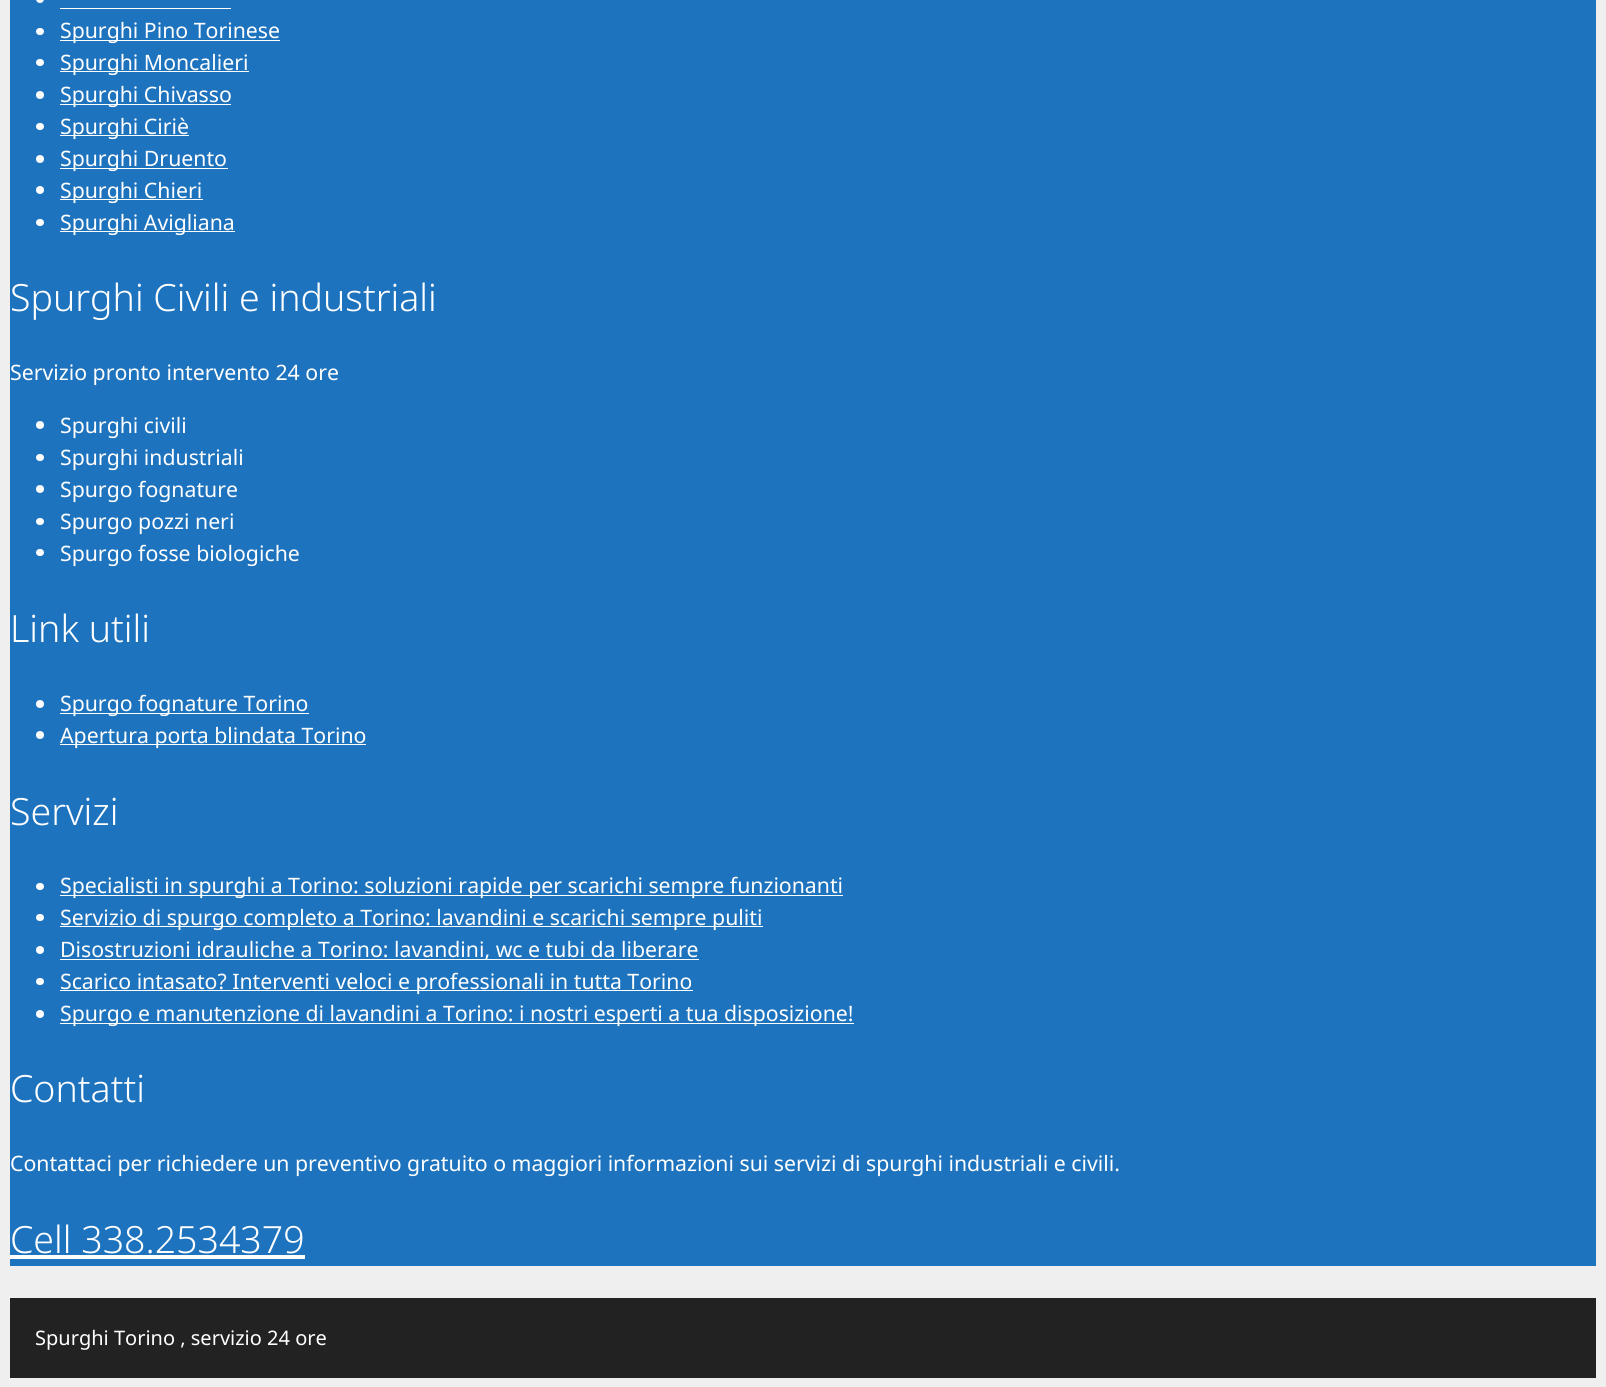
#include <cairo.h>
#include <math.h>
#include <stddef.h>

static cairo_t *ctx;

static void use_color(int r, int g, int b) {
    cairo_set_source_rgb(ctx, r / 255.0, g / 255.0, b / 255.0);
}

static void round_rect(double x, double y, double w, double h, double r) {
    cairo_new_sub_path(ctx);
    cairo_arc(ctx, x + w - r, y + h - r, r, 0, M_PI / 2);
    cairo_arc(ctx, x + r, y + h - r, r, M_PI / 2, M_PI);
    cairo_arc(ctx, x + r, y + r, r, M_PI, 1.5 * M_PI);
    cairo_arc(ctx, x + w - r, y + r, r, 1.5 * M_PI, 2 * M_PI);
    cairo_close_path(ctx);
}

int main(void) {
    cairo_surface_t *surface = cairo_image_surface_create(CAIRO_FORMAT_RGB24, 1606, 1387);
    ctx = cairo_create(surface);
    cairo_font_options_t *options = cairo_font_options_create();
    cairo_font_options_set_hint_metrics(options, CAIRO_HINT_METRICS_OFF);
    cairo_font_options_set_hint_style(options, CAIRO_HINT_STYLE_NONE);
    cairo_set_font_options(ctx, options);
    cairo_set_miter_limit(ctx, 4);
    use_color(239, 239, 239);
    cairo_paint(ctx);
    use_color(30, 115, 190);
    cairo_rectangle(ctx, 10, 0, 1586, 1266);
    cairo_fill(ctx);
    use_color(255, 255, 255);
    round_rect(36, -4, 8, 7, 4);
    cairo_fill(ctx);
    cairo_rectangle(ctx, 60, 8, 171, 1);
    cairo_fill(ctx);
    round_rect(36, 28, 8, 7, 3.5);
    cairo_fill(ctx);
    cairo_rectangle(ctx, 60, 40, 220, 1);
    cairo_fill(ctx);
    cairo_select_font_face(ctx, "Noto Sans", CAIRO_FONT_SLANT_NORMAL, CAIRO_FONT_WEIGHT_NORMAL);
    cairo_set_font_size(ctx, 21.25);
    cairo_move_to(ctx, 60, 38);
    cairo_show_text(ctx, "Spurghi Pino Torinese");
    round_rect(36, 59, 8, 7, 3.5);
    cairo_fill(ctx);
    cairo_rectangle(ctx, 60, 71, 189, 1);
    cairo_fill(ctx);
    cairo_move_to(ctx, 60, 70);
    cairo_show_text(ctx, "Spurghi Moncalieri");
    cairo_new_path(ctx);
    cairo_arc(ctx, 40, 95, 4, 0, 2 * M_PI);
    cairo_fill(ctx);
    cairo_rectangle(ctx, 60, 104, 171, 1);
    cairo_fill(ctx);
    cairo_move_to(ctx, 60, 102);
    cairo_show_text(ctx, "Spurghi Chivasso");
    round_rect(36, 123, 8, 7, 3.5);
    cairo_fill(ctx);
    cairo_rectangle(ctx, 60, 135, 129, 1);
    cairo_fill(ctx);
    cairo_move_to(ctx, 60, 134);
    cairo_show_text(ctx, "Spurghi Ciriè");
    cairo_new_path(ctx);
    cairo_arc(ctx, 40, 159, 4, 0, 2 * M_PI);
    cairo_fill(ctx);
    cairo_rectangle(ctx, 60, 168, 168, 1);
    cairo_fill(ctx);
    cairo_move_to(ctx, 60, 166);
    cairo_show_text(ctx, "Spurghi Druento");
    cairo_new_path(ctx);
    cairo_arc(ctx, 40, 190, 4, 0, 2 * M_PI);
    cairo_fill(ctx);
    cairo_rectangle(ctx, 60, 199, 143, 1);
    cairo_fill(ctx);
    cairo_move_to(ctx, 60, 198);
    cairo_show_text(ctx, "Spurghi Chieri");
    round_rect(36, 219, 8, 7, 3.5);
    cairo_fill(ctx);
    cairo_rectangle(ctx, 60, 231, 175, 1);
    cairo_fill(ctx);
    cairo_move_to(ctx, 60, 230);
    cairo_show_text(ctx, "Spurghi Avigliana");
    cairo_select_font_face(ctx, "Noto Sans Light", CAIRO_FONT_SLANT_NORMAL, CAIRO_FONT_WEIGHT_NORMAL);
    cairo_set_font_size(ctx, 37.5);
    cairo_move_to(ctx, 10, 311);
    cairo_show_text(ctx, "Spurghi Civili e industriali");
    cairo_select_font_face(ctx, "Noto Sans", CAIRO_FONT_SLANT_NORMAL, CAIRO_FONT_WEIGHT_NORMAL);
    cairo_set_font_size(ctx, 21.25);
    cairo_move_to(ctx, 10, 380);
    cairo_show_text(ctx, "Servizio pronto intervento 24 ore");
    cairo_new_path(ctx);
    cairo_arc(ctx, 40, 425, 4, 0, 2 * M_PI);
    cairo_fill(ctx);
    cairo_move_to(ctx, 60, 433);
    cairo_show_text(ctx, "Spurghi civili");
    round_rect(36, 454, 8, 7, 3.5);
    cairo_fill(ctx);
    cairo_move_to(ctx, 60, 465);
    cairo_show_text(ctx, "Spurghi industriali");
    cairo_new_path(ctx);
    cairo_arc(ctx, 40, 489, 4, 0, 2 * M_PI);
    cairo_fill(ctx);
    cairo_move_to(ctx, 60, 497);
    cairo_show_text(ctx, "Spurgo fognature");
    round_rect(36, 518, 8, 7, 3.5);
    cairo_fill(ctx);
    cairo_move_to(ctx, 60, 529);
    cairo_show_text(ctx, "Spurgo pozzi neri");
    round_rect(36, 549, 8, 7, 3.5);
    cairo_fill(ctx);
    cairo_move_to(ctx, 60, 561);
    cairo_show_text(ctx, "Spurgo fosse biologiche");
    cairo_select_font_face(ctx, "Noto Sans Light", CAIRO_FONT_SLANT_NORMAL, CAIRO_FONT_WEIGHT_NORMAL);
    cairo_set_font_size(ctx, 37.5);
    cairo_move_to(ctx, 10, 642);
    cairo_show_text(ctx, "Link utili");
    cairo_new_path(ctx);
    cairo_arc(ctx, 40, 704, 4, 0, 2 * M_PI);
    cairo_fill(ctx);
    cairo_rectangle(ctx, 60, 713, 249, 1);
    cairo_fill(ctx);
    cairo_select_font_face(ctx, "Noto Sans", CAIRO_FONT_SLANT_NORMAL, CAIRO_FONT_WEIGHT_NORMAL);
    cairo_set_font_size(ctx, 21.25);
    cairo_move_to(ctx, 60, 711);
    cairo_show_text(ctx, "Spurgo fognature Torino");
    cairo_new_path(ctx);
    cairo_arc(ctx, 40, 735, 4, 0, 2 * M_PI);
    cairo_fill(ctx);
    cairo_rectangle(ctx, 60, 744, 306, 1);
    cairo_fill(ctx);
    cairo_move_to(ctx, 60, 743);
    cairo_show_text(ctx, "Apertura porta blindata Torino");
    cairo_select_font_face(ctx, "Noto Sans Light", CAIRO_FONT_SLANT_NORMAL, CAIRO_FONT_WEIGHT_NORMAL);
    cairo_set_font_size(ctx, 37.5);
    cairo_move_to(ctx, 10, 825);
    cairo_show_text(ctx, "Servizi");
    round_rect(36, 883, 8, 7, 3.5);
    cairo_fill(ctx);
    cairo_rectangle(ctx, 60, 895, 783, 1);
    cairo_fill(ctx);
    cairo_select_font_face(ctx, "Noto Sans", CAIRO_FONT_SLANT_NORMAL, CAIRO_FONT_WEIGHT_NORMAL);
    cairo_set_font_size(ctx, 21.25);
    cairo_move_to(ctx, 60, 893);
    cairo_show_text(ctx, "Specialisti in spurghi a Torino: soluzioni rapide per scarichi sempre funzionanti");
    round_rect(36, 914, 8, 7, 3.5);
    cairo_fill(ctx);
    cairo_rectangle(ctx, 60, 926, 703, 1);
    cairo_fill(ctx);
    cairo_move_to(ctx, 60, 925);
    cairo_show_text(ctx, "Servizio di spurgo completo a Torino: lavandini e scarichi sempre puliti");
    cairo_new_path(ctx);
    cairo_arc(ctx, 40, 950, 4, 0, 2 * M_PI);
    cairo_fill(ctx);
    cairo_rectangle(ctx, 60, 959, 639, 1);
    cairo_fill(ctx);
    cairo_move_to(ctx, 60, 957);
    cairo_show_text(ctx, "Disostruzioni idrauliche a Torino: lavandini, wc e tubi da liberare");
    round_rect(36, 978, 8, 7, 3.5);
    cairo_fill(ctx);
    cairo_rectangle(ctx, 60, 990, 633, 1);
    cairo_fill(ctx);
    cairo_move_to(ctx, 60, 989);
    cairo_show_text(ctx, "Scarico intasato? Interventi veloci e professionali in tutta Torino");
    cairo_new_path(ctx);
    cairo_arc(ctx, 40, 1014, 4, 0, 2 * M_PI);
    cairo_fill(ctx);
    cairo_rectangle(ctx, 60, 1023, 794, 1);
    cairo_fill(ctx);
    cairo_move_to(ctx, 60, 1021);
    cairo_show_text(ctx, "Spurgo e manutenzione di lavandini a Torino: i nostri esperti a tua disposizione!");
    cairo_select_font_face(ctx, "Noto Sans Light", CAIRO_FONT_SLANT_NORMAL, CAIRO_FONT_WEIGHT_NORMAL);
    cairo_set_font_size(ctx, 37.5);
    cairo_move_to(ctx, 10, 1102);
    cairo_show_text(ctx, "Contatti");
    cairo_select_font_face(ctx, "Noto Sans", CAIRO_FONT_SLANT_NORMAL, CAIRO_FONT_WEIGHT_NORMAL);
    cairo_set_font_size(ctx, 21.25);
    cairo_move_to(ctx, 10, 1171);
    cairo_show_text(ctx, "Contattaci per richiedere un preventivo gratuito o maggiori informazioni sui servizi di spurghi industriali e civili.");
    cairo_select_font_face(ctx, "Noto Sans Light", CAIRO_FONT_SLANT_NORMAL, CAIRO_FONT_WEIGHT_NORMAL);
    cairo_set_font_size(ctx, 37.5);
    cairo_move_to(ctx, 10, 1253);
    cairo_show_text(ctx, "Cell 338.2534379");
    cairo_rectangle(ctx, 10, 1255, 295, 4);
    cairo_fill(ctx);
    use_color(34, 34, 34);
    cairo_rectangle(ctx, 10, 1298, 1586, 80);
    cairo_fill(ctx);
    cairo_select_font_face(ctx, "Noto Sans", CAIRO_FONT_SLANT_NORMAL, CAIRO_FONT_WEIGHT_NORMAL);
    cairo_set_font_size(ctx, 20);
    use_color(255, 255, 255);
    cairo_move_to(ctx, 35, 1345);
    cairo_show_text(ctx, "Spurghi Torino , servizio 24 ore");
    cairo_surface_write_to_png(surface, "result.png");
    cairo_font_options_destroy(options);
    cairo_destroy(ctx);
    cairo_surface_destroy(surface);
    return 0;
}
